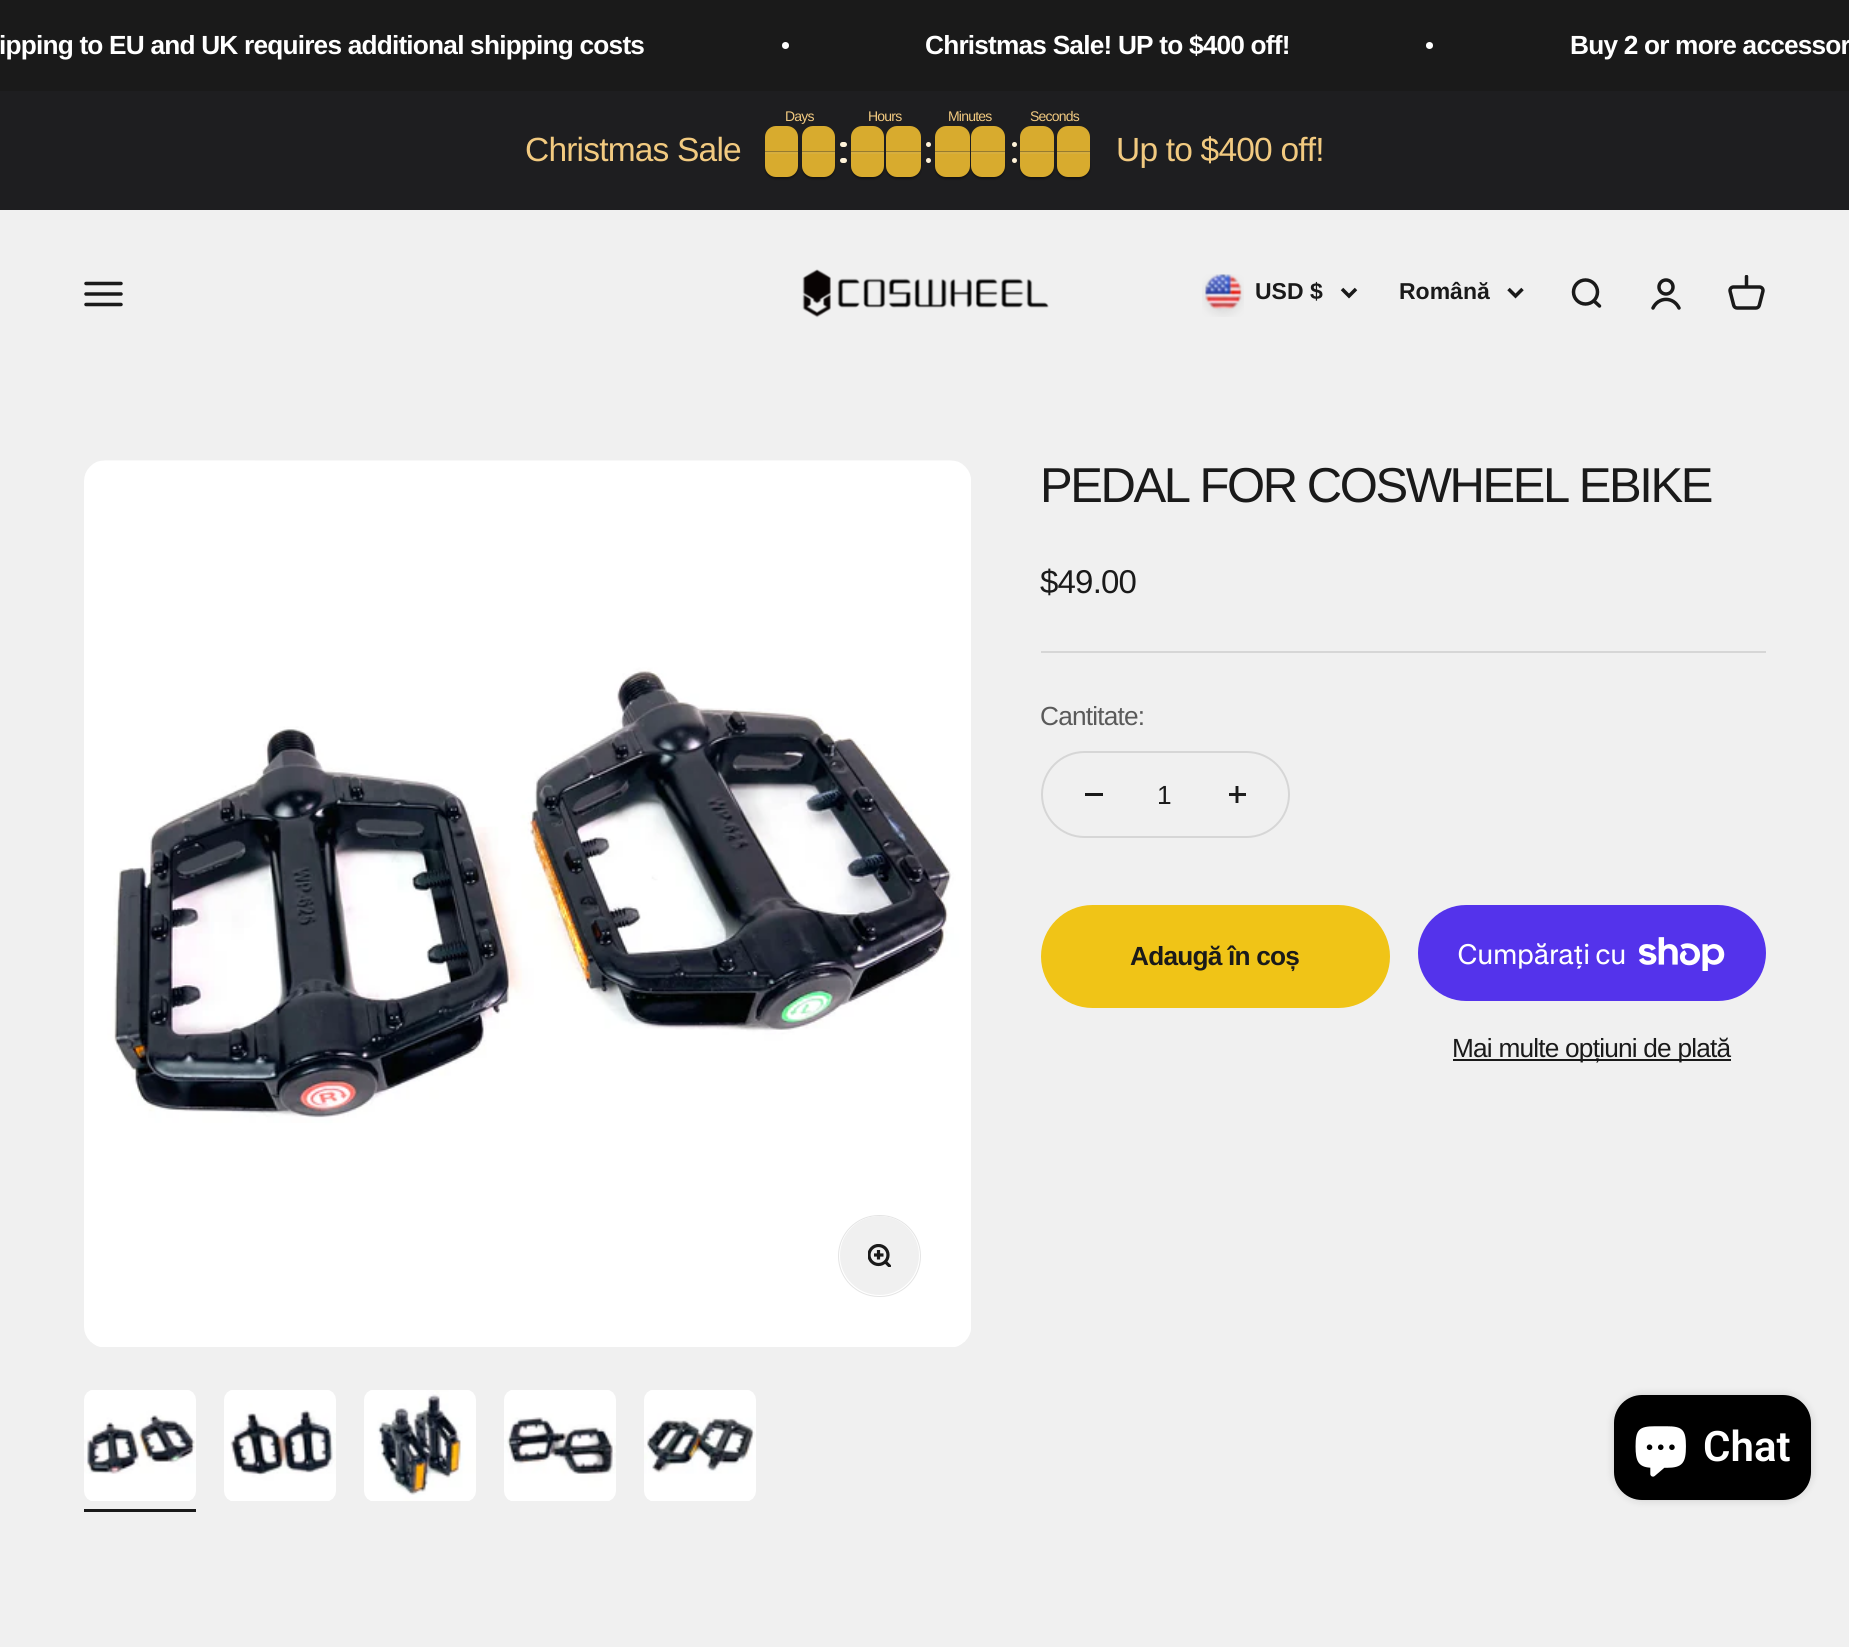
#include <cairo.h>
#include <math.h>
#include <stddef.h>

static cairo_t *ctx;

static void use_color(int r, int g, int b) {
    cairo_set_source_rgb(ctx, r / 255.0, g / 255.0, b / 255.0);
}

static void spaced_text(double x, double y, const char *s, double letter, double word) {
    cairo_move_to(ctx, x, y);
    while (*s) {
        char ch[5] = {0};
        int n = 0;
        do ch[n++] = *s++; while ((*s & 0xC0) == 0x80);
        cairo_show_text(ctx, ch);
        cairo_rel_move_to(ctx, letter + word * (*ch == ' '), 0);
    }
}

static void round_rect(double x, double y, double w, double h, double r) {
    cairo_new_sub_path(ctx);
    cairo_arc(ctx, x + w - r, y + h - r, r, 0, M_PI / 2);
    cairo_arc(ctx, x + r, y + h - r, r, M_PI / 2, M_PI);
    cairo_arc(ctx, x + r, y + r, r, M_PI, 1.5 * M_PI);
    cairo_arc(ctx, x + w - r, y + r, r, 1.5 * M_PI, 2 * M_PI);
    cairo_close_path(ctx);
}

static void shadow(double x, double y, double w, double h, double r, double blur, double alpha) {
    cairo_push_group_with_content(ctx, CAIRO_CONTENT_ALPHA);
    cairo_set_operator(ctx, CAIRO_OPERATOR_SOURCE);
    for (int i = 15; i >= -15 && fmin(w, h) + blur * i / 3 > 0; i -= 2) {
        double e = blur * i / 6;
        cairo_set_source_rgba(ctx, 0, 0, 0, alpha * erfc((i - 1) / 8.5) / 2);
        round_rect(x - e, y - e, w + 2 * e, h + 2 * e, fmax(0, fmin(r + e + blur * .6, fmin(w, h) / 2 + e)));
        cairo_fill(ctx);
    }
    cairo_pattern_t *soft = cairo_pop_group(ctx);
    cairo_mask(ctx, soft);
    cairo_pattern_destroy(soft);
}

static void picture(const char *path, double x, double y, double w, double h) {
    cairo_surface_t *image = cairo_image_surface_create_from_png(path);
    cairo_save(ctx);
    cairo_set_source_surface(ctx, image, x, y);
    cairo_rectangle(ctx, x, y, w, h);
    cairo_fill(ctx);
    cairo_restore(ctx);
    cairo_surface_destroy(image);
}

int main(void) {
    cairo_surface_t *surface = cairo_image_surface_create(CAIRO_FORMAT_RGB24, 1849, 1647);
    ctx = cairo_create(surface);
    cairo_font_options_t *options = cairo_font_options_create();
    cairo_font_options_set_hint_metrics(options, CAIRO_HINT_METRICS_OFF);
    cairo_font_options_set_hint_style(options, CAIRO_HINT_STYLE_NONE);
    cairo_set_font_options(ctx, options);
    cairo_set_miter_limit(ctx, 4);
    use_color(240, 240, 240);
    cairo_paint(ctx);
    use_color(26, 26, 26);
    cairo_rectangle(ctx, 0, 0, 1849, 91);
    cairo_fill(ctx);
    cairo_select_font_face(ctx, "Liberation Sans", CAIRO_FONT_SLANT_NORMAL, CAIRO_FONT_WEIGHT_BOLD);
    cairo_set_font_size(ctx, 26.25);
    use_color(255, 255, 255);
    spaced_text(-1, 54, "ipping to EU and UK requires additional shipping costs", -0.8, 0);
    cairo_new_path(ctx);
    cairo_arc(ctx, 785.5, 45.5, 3.5, 0, 2 * M_PI);
    cairo_fill(ctx);
    spaced_text(925, 54, "Christmas Sale! UP to $400 off!", -0.8, 0);
    cairo_new_path(ctx);
    cairo_arc(ctx, 1429.5, 45.5, 3.5, 0, 2 * M_PI);
    cairo_fill(ctx);
    spaced_text(1570, 54, "Buy 2 or more accessor", -0.8, 0);
    use_color(30, 30, 32);
    cairo_rectangle(ctx, 0, 91, 1849, 119);
    cairo_fill(ctx);
    cairo_select_font_face(ctx, "Liberation Sans", CAIRO_FONT_SLANT_NORMAL, CAIRO_FONT_WEIGHT_NORMAL);
    cairo_set_font_size(ctx, 14);
    use_color(242, 202, 128);
    spaced_text(785, 121, "Days", -0.8, 0);
    use_color(0, 0, 0);
    shadow(765, 154, 33, 25, 11, 1, 0.4);
    use_color(216, 171, 46);
    cairo_new_path(ctx);
    cairo_move_to(ctx, 776, 126);
    cairo_line_to(ctx, 787, 126);
    cairo_curve_to(ctx, 793, 126, 798, 131, 798, 137);
    cairo_line_to(ctx, 798, 152);
    cairo_line_to(ctx, 765, 152);
    cairo_line_to(ctx, 765, 137);
    cairo_curve_to(ctx, 765, 131, 770, 126, 776, 126);
    cairo_close_path(ctx);
    cairo_fill(ctx);
    cairo_set_source_rgba(ctx, 0.2, 0.2, 0.2, 0.4);
    cairo_rectangle(ctx, 765, 151, 33, 1);
    cairo_fill(ctx);
    use_color(216, 171, 46);
    cairo_new_path(ctx);
    cairo_move_to(ctx, 765, 152);
    cairo_line_to(ctx, 798, 152);
    cairo_line_to(ctx, 798, 166);
    cairo_curve_to(ctx, 798, 172, 793, 177, 787, 177);
    cairo_line_to(ctx, 776, 177);
    cairo_curve_to(ctx, 770, 177, 765, 172, 765, 166);
    cairo_close_path(ctx);
    cairo_fill(ctx);
    cairo_set_source_rgba(ctx, 0.8, 0.8, 0.8, 0.1);
    cairo_rectangle(ctx, 765, 152, 33, 2);
    cairo_fill(ctx);
    use_color(0, 0, 0);
    shadow(802, 154, 33, 25, 11, 1, 0.4);
    use_color(216, 171, 46);
    cairo_new_path(ctx);
    cairo_move_to(ctx, 813, 126);
    cairo_line_to(ctx, 824, 126);
    cairo_curve_to(ctx, 830, 126, 835, 131, 835, 137);
    cairo_line_to(ctx, 835, 152);
    cairo_line_to(ctx, 802, 152);
    cairo_line_to(ctx, 802, 137);
    cairo_curve_to(ctx, 802, 131, 807, 126, 813, 126);
    cairo_close_path(ctx);
    cairo_fill(ctx);
    cairo_set_source_rgba(ctx, 0.2, 0.2, 0.2, 0.4);
    cairo_rectangle(ctx, 802, 151, 33, 1);
    cairo_fill(ctx);
    use_color(216, 171, 46);
    cairo_new_path(ctx);
    cairo_move_to(ctx, 802, 152);
    cairo_line_to(ctx, 835, 152);
    cairo_line_to(ctx, 835, 166);
    cairo_curve_to(ctx, 835, 172, 830, 177, 824, 177);
    cairo_line_to(ctx, 813, 177);
    cairo_curve_to(ctx, 807, 177, 802, 172, 802, 166);
    cairo_close_path(ctx);
    cairo_fill(ctx);
    cairo_set_source_rgba(ctx, 0.8, 0.8, 0.8, 0.1);
    cairo_rectangle(ctx, 802, 152, 33, 2);
    cairo_fill(ctx);
    use_color(242, 202, 128);
    spaced_text(868, 121, "Hours", -0.8, 0);
    use_color(0, 0, 0);
    shadow(851, 154, 33, 25, 11, 1, 0.4);
    shadow(886, 154, 35, 25, 11, 1, 0.4);
    use_color(216, 171, 46);
    cairo_new_path(ctx);
    cairo_move_to(ctx, 862, 126);
    cairo_line_to(ctx, 873, 126);
    cairo_curve_to(ctx, 879, 126, 884, 131, 884, 137);
    cairo_line_to(ctx, 884, 152);
    cairo_line_to(ctx, 851, 152);
    cairo_line_to(ctx, 851, 137);
    cairo_curve_to(ctx, 851, 131, 856, 126, 862, 126);
    cairo_close_path(ctx);
    cairo_fill(ctx);
    cairo_set_source_rgba(ctx, 0.2, 0.2, 0.2, 0.4);
    cairo_rectangle(ctx, 851, 151, 33, 1);
    cairo_fill(ctx);
    use_color(216, 171, 46);
    cairo_new_path(ctx);
    cairo_move_to(ctx, 851, 152);
    cairo_line_to(ctx, 884, 152);
    cairo_line_to(ctx, 884, 166);
    cairo_curve_to(ctx, 884, 172, 879, 177, 873, 177);
    cairo_line_to(ctx, 862, 177);
    cairo_curve_to(ctx, 856, 177, 851, 172, 851, 166);
    cairo_close_path(ctx);
    cairo_fill(ctx);
    cairo_set_source_rgba(ctx, 0.8, 0.8, 0.8, 0.1);
    cairo_rectangle(ctx, 851, 152, 33, 2);
    cairo_fill(ctx);
    use_color(216, 171, 46);
    cairo_new_path(ctx);
    cairo_move_to(ctx, 897, 126);
    cairo_line_to(ctx, 910, 126);
    cairo_curve_to(ctx, 916, 126, 921, 131, 921, 137);
    cairo_line_to(ctx, 921, 152);
    cairo_line_to(ctx, 886, 152);
    cairo_line_to(ctx, 886, 137);
    cairo_curve_to(ctx, 886, 131, 891, 126, 897, 126);
    cairo_close_path(ctx);
    cairo_fill(ctx);
    cairo_set_source_rgba(ctx, 0.2, 0.2, 0.2, 0.4);
    cairo_rectangle(ctx, 886, 151, 35, 1);
    cairo_fill(ctx);
    use_color(216, 171, 46);
    cairo_new_path(ctx);
    cairo_move_to(ctx, 886, 152);
    cairo_line_to(ctx, 921, 152);
    cairo_line_to(ctx, 921, 166);
    cairo_curve_to(ctx, 921, 172, 916, 177, 910, 177);
    cairo_line_to(ctx, 897, 177);
    cairo_curve_to(ctx, 891, 177, 886, 172, 886, 166);
    cairo_close_path(ctx);
    cairo_fill(ctx);
    cairo_set_source_rgba(ctx, 0.8, 0.8, 0.8, 0.1);
    cairo_rectangle(ctx, 886, 152, 35, 2);
    cairo_fill(ctx);
    use_color(242, 202, 128);
    spaced_text(948, 121, "Minutes", -0.8, 0);
    use_color(0, 0, 0);
    shadow(935, 154, 35, 25, 11, 1, 0.4);
    shadow(971, 154, 34, 25, 11, 1, 0.4);
    use_color(216, 171, 46);
    cairo_new_path(ctx);
    cairo_move_to(ctx, 946, 126);
    cairo_line_to(ctx, 959, 126);
    cairo_curve_to(ctx, 965, 126, 970, 131, 970, 137);
    cairo_line_to(ctx, 970, 152);
    cairo_line_to(ctx, 935, 152);
    cairo_line_to(ctx, 935, 137);
    cairo_curve_to(ctx, 935, 131, 940, 126, 946, 126);
    cairo_close_path(ctx);
    cairo_fill(ctx);
    cairo_set_source_rgba(ctx, 0.2, 0.2, 0.2, 0.4);
    cairo_rectangle(ctx, 935, 151, 35, 1);
    cairo_fill(ctx);
    use_color(216, 171, 46);
    cairo_new_path(ctx);
    cairo_move_to(ctx, 935, 152);
    cairo_line_to(ctx, 970, 152);
    cairo_line_to(ctx, 970, 166);
    cairo_curve_to(ctx, 970, 172, 965, 177, 959, 177);
    cairo_line_to(ctx, 946, 177);
    cairo_curve_to(ctx, 940, 177, 935, 172, 935, 166);
    cairo_close_path(ctx);
    cairo_fill(ctx);
    cairo_set_source_rgba(ctx, 0.8, 0.8, 0.8, 0.1);
    cairo_rectangle(ctx, 935, 152, 35, 2);
    cairo_fill(ctx);
    use_color(216, 171, 46);
    cairo_new_path(ctx);
    cairo_move_to(ctx, 982, 126);
    cairo_line_to(ctx, 994, 126);
    cairo_curve_to(ctx, 1000, 126, 1005, 131, 1005, 137);
    cairo_line_to(ctx, 1005, 152);
    cairo_line_to(ctx, 971, 152);
    cairo_line_to(ctx, 971, 137);
    cairo_curve_to(ctx, 971, 131, 976, 126, 982, 126);
    cairo_close_path(ctx);
    cairo_fill(ctx);
    cairo_set_source_rgba(ctx, 0.2, 0.2, 0.2, 0.4);
    cairo_rectangle(ctx, 971, 151, 34, 1);
    cairo_fill(ctx);
    use_color(216, 171, 46);
    cairo_new_path(ctx);
    cairo_move_to(ctx, 971, 152);
    cairo_line_to(ctx, 1005, 152);
    cairo_line_to(ctx, 1005, 166);
    cairo_curve_to(ctx, 1005, 172, 1000, 177, 994, 177);
    cairo_line_to(ctx, 982, 177);
    cairo_curve_to(ctx, 976, 177, 971, 172, 971, 166);
    cairo_close_path(ctx);
    cairo_fill(ctx);
    cairo_set_source_rgba(ctx, 0.8, 0.8, 0.8, 0.1);
    cairo_rectangle(ctx, 971, 152, 34, 2);
    cairo_fill(ctx);
    use_color(242, 202, 128);
    spaced_text(1030, 121, "Seconds", -0.8, 0);
    use_color(255, 243, 217);
    cairo_new_path(ctx);
    cairo_arc(ctx, 1014.5, 160.5, 2.5, 0, 2 * M_PI);
    cairo_fill(ctx);
    use_color(0, 0, 0);
    shadow(1020, 154, 34, 25, 11, 1, 0.4);
    shadow(1057, 154, 33, 25, 11, 1, 0.4);
    use_color(216, 171, 46);
    cairo_new_path(ctx);
    cairo_move_to(ctx, 1031, 126);
    cairo_line_to(ctx, 1043, 126);
    cairo_curve_to(ctx, 1049, 126, 1054, 131, 1054, 137);
    cairo_line_to(ctx, 1054, 152);
    cairo_line_to(ctx, 1020, 152);
    cairo_line_to(ctx, 1020, 137);
    cairo_curve_to(ctx, 1020, 131, 1025, 126, 1031, 126);
    cairo_close_path(ctx);
    cairo_fill(ctx);
    cairo_set_source_rgba(ctx, 0.2, 0.2, 0.2, 0.4);
    cairo_rectangle(ctx, 1020, 151, 34, 1);
    cairo_fill(ctx);
    use_color(216, 171, 46);
    cairo_new_path(ctx);
    cairo_move_to(ctx, 1020, 152);
    cairo_line_to(ctx, 1054, 152);
    cairo_line_to(ctx, 1054, 166);
    cairo_curve_to(ctx, 1054, 172, 1049, 177, 1043, 177);
    cairo_line_to(ctx, 1031, 177);
    cairo_curve_to(ctx, 1025, 177, 1020, 172, 1020, 166);
    cairo_close_path(ctx);
    cairo_fill(ctx);
    cairo_set_source_rgba(ctx, 0.8, 0.8, 0.8, 0.1);
    cairo_rectangle(ctx, 1020, 152, 34, 2);
    cairo_fill(ctx);
    use_color(216, 171, 46);
    cairo_new_path(ctx);
    cairo_move_to(ctx, 1068, 126);
    cairo_line_to(ctx, 1079, 126);
    cairo_curve_to(ctx, 1085, 126, 1090, 131, 1090, 137);
    cairo_line_to(ctx, 1090, 152);
    cairo_line_to(ctx, 1057, 152);
    cairo_line_to(ctx, 1057, 137);
    cairo_curve_to(ctx, 1057, 131, 1062, 126, 1068, 126);
    cairo_close_path(ctx);
    cairo_fill(ctx);
    cairo_set_source_rgba(ctx, 0.2, 0.2, 0.2, 0.4);
    cairo_rectangle(ctx, 1057, 151, 33, 1);
    cairo_fill(ctx);
    use_color(216, 171, 46);
    cairo_new_path(ctx);
    cairo_move_to(ctx, 1057, 152);
    cairo_line_to(ctx, 1090, 152);
    cairo_line_to(ctx, 1090, 166);
    cairo_curve_to(ctx, 1090, 172, 1085, 177, 1079, 177);
    cairo_line_to(ctx, 1068, 177);
    cairo_curve_to(ctx, 1062, 177, 1057, 172, 1057, 166);
    cairo_close_path(ctx);
    cairo_fill(ctx);
    cairo_set_source_rgba(ctx, 0.8, 0.8, 0.8, 0.1);
    cairo_rectangle(ctx, 1057, 152, 33, 2);
    cairo_fill(ctx);
    use_color(255, 243, 217);
    round_rect(840, 142, 7, 5, 2.5);
    cairo_fill(ctx);
    round_rect(840, 158, 7, 5, 2.5);
    cairo_fill(ctx);
    cairo_arc(ctx, 928.5, 144.5, 2.5, 0, 2 * M_PI);
    cairo_fill(ctx);
    cairo_arc(ctx, 928.5, 160.5, 2.5, 0, 2 * M_PI);
    cairo_fill(ctx);
    cairo_arc(ctx, 1014.5, 144.5, 2.5, 0, 2 * M_PI);
    cairo_fill(ctx);
    cairo_set_font_size(ctx, 33.5);
    use_color(242, 202, 128);
    spaced_text(525, 161, "Christmas Sale", -0.8, 0);
    spaced_text(1116, 161, "Up to $400 off!", -0.8, 0);
    cairo_new_path(ctx);
    cairo_move_to(ctx, 86, 283.5);
    cairo_line_to(ctx, 121, 283.5);
    cairo_move_to(ctx, 86, 294);
    cairo_line_to(ctx, 121, 294);
    cairo_move_to(ctx, 86, 304.5);
    cairo_line_to(ctx, 121, 304.5);
    use_color(26, 26, 26);
    cairo_set_line_width(ctx, 3.5);
    cairo_set_line_cap(ctx, CAIRO_LINE_CAP_ROUND);
    cairo_stroke(ctx);
    picture("img1.png", 802, 269, 247, 49);
    picture("img2.png", 1202, 274, 42, 43);
    cairo_select_font_face(ctx, "Liberation Sans", CAIRO_FONT_SLANT_NORMAL, CAIRO_FONT_WEIGHT_BOLD);
    cairo_set_font_size(ctx, 23);
    cairo_move_to(ctx, 1255, 299);
    cairo_show_text(ctx, "USD $");
    cairo_new_path(ctx);
    cairo_move_to(ctx, 1342, 289);
    cairo_line_to(ctx, 1349, 296);
    cairo_line_to(ctx, 1356, 289);
    cairo_set_line_cap(ctx, CAIRO_LINE_CAP_BUTT);
    cairo_stroke(ctx);
    cairo_move_to(ctx, 1399, 299);
    cairo_show_text(ctx, "Română");
    cairo_new_path(ctx);
    cairo_move_to(ctx, 1508.5, 289);
    cairo_line_to(ctx, 1515.5, 296);
    cairo_line_to(ctx, 1522.5, 289);
    cairo_stroke(ctx);
    cairo_arc(ctx, 1585.5, 292, 12, 0, 2 * M_PI);
    cairo_stroke(ctx);
    cairo_new_path(ctx);
    cairo_move_to(ctx, 1594, 301);
    cairo_line_to(ctx, 1599.5, 306);
    cairo_set_line_cap(ctx, CAIRO_LINE_CAP_ROUND);
    cairo_set_line_join(ctx, CAIRO_LINE_JOIN_ROUND);
    cairo_stroke(ctx);
    cairo_arc(ctx, 1666, 287, 7, 0, 2 * M_PI);
    cairo_set_line_cap(ctx, CAIRO_LINE_CAP_BUTT);
    cairo_set_line_join(ctx, CAIRO_LINE_JOIN_MITER);
    cairo_stroke(ctx);
    cairo_new_path(ctx);
    cairo_move_to(ctx, 1653, 308);
    cairo_curve_to(ctx, 1658.5, 296.5, 1673.5, 296.5, 1679, 308);
    cairo_set_line_cap(ctx, CAIRO_LINE_CAP_ROUND);
    cairo_stroke(ctx);
    picture("img3.png", 1728, 275, 37, 35);
    picture("img4.png", 84, 460, 887, 887);
    round_rect(838.5, 1215.5, 82, 81, 40.5);
    use_color(228, 228, 228);
    cairo_set_line_width(ctx, 1);
    cairo_set_line_cap(ctx, CAIRO_LINE_CAP_BUTT);
    cairo_stroke(ctx);
    use_color(240, 240, 240);
    cairo_arc(ctx, 879.5, 1255.5, 39.5, 0, 2 * M_PI);
    cairo_fill(ctx);
    cairo_save(ctx);
    cairo_rectangle(ctx, 868, 1244, 23, 23);
    cairo_clip(ctx);
    cairo_arc(ctx, 878.5, 1255, 9.5, 0, 2 * M_PI);
    use_color(26, 26, 26);
    cairo_set_line_width(ctx, 3.2);
    cairo_stroke(ctx);
    cairo_new_path(ctx);
    cairo_move_to(ctx, 885.5, 1262);
    cairo_line_to(ctx, 889.5, 1266);
    cairo_set_line_cap(ctx, CAIRO_LINE_CAP_ROUND);
    cairo_set_line_join(ctx, CAIRO_LINE_JOIN_ROUND);
    cairo_stroke(ctx);
    cairo_restore(ctx);
    cairo_new_path(ctx);
    cairo_move_to(ctx, 878.5, 1250);
    cairo_line_to(ctx, 878.5, 1259.5);
    cairo_move_to(ctx, 874, 1255);
    cairo_line_to(ctx, 883.5, 1255);
    use_color(26, 26, 26);
    cairo_set_line_width(ctx, 3.2);
    cairo_stroke(ctx);
    picture("img5.png", 84, 1390, 112, 111);
    cairo_rectangle(ctx, 84, 1509, 112, 3);
    cairo_fill(ctx);
    picture("img6.png", 224, 1390, 112, 111);
    picture("img7.png", 364, 1390, 112, 111);
    picture("img8.png", 504, 1390, 112, 111);
    picture("img9.png", 644, 1390, 112, 111);
    cairo_select_font_face(ctx, "Liberation Sans", CAIRO_FONT_SLANT_NORMAL, CAIRO_FONT_WEIGHT_NORMAL);
    cairo_set_font_size(ctx, 49);
    spaced_text(1040, 502, "PEDAL FOR COSWHEEL EBIKE", -2.45, 0);
    cairo_set_font_size(ctx, 33);
    spaced_text(1040, 593, "$49.00", -0.8, 0);
    use_color(214, 214, 214);
    cairo_rectangle(ctx, 1041, 651, 725, 2);
    cairo_fill(ctx);
    cairo_set_font_size(ctx, 26.25);
    use_color(90, 90, 90);
    spaced_text(1040, 725, "Cantitate:", -0.8, 0);
    round_rect(1042, 752, 247, 85, 42.5);
    use_color(214, 214, 214);
    cairo_set_line_width(ctx, 2);
    cairo_stroke(ctx);
    use_color(26, 26, 26);
    cairo_rectangle(ctx, 1085, 793, 18, 3);
    cairo_fill(ctx);
    cairo_move_to(ctx, 1157, 804);
    cairo_show_text(ctx, "1");
    cairo_new_path(ctx);
    cairo_move_to(ctx, 1237, 786);
    cairo_line_to(ctx, 1237, 803);
    cairo_set_line_width(ctx, 2.9);
    cairo_stroke(ctx);
    cairo_set_source_rgba(ctx, 0.102, 0.102, 0.102, 0.97);
    cairo_rectangle(ctx, 1229, 793, 17, 3);
    cairo_fill(ctx);
    use_color(240, 196, 23);
    round_rect(1041, 905, 349, 103, 51.5);
    cairo_fill(ctx);
    cairo_select_font_face(ctx, "Liberation Sans", CAIRO_FONT_SLANT_NORMAL, CAIRO_FONT_WEIGHT_BOLD);
    use_color(26, 26, 26);
    spaced_text(1130, 965, "Adaugă în coș", -0.8, 0);
    use_color(84, 51, 235);
    round_rect(1418, 905, 348, 96, 48);
    cairo_fill(ctx);
    cairo_select_font_face(ctx, "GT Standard", CAIRO_FONT_SLANT_NORMAL, CAIRO_FONT_WEIGHT_NORMAL);
    cairo_set_font_size(ctx, 28);
    use_color(255, 255, 255);
    spaced_text(1457, 964, "Cumpărați cu", -0.8, 0);
    picture("img10.png", 1639, 937, 86, 34);
    use_color(26, 26, 26);
    cairo_rectangle(ctx, 1453, 1059, 278, 2);
    cairo_fill(ctx);
    cairo_select_font_face(ctx, "Liberation Sans", CAIRO_FONT_SLANT_NORMAL, CAIRO_FONT_WEIGHT_NORMAL);
    cairo_set_font_size(ctx, 26.25);
    spaced_text(1452, 1057, "Mai multe opțiuni de plată", -0.8, 0);
    use_color(0, 0, 0);
    shadow(1614, 1395, 197, 105, 28, 4.5, 0.15);
    use_color(0, 0, 0);
    round_rect(1614, 1395, 197, 105, 28);
    cairo_fill(ctx);
    picture("img11.png", 1635, 1426, 51, 51);
    cairo_select_font_face(ctx, "Roboto SemiBold", CAIRO_FONT_SLANT_NORMAL, CAIRO_FONT_WEIGHT_NORMAL);
    cairo_set_font_size(ctx, 42);
    use_color(255, 255, 255);
    cairo_move_to(ctx, 1703, 1461);
    cairo_show_text(ctx, "Chat");
    cairo_surface_write_to_png(surface, "result.png");
    cairo_font_options_destroy(options);
    cairo_destroy(ctx);
    cairo_surface_destroy(surface);
    return 0;
}
